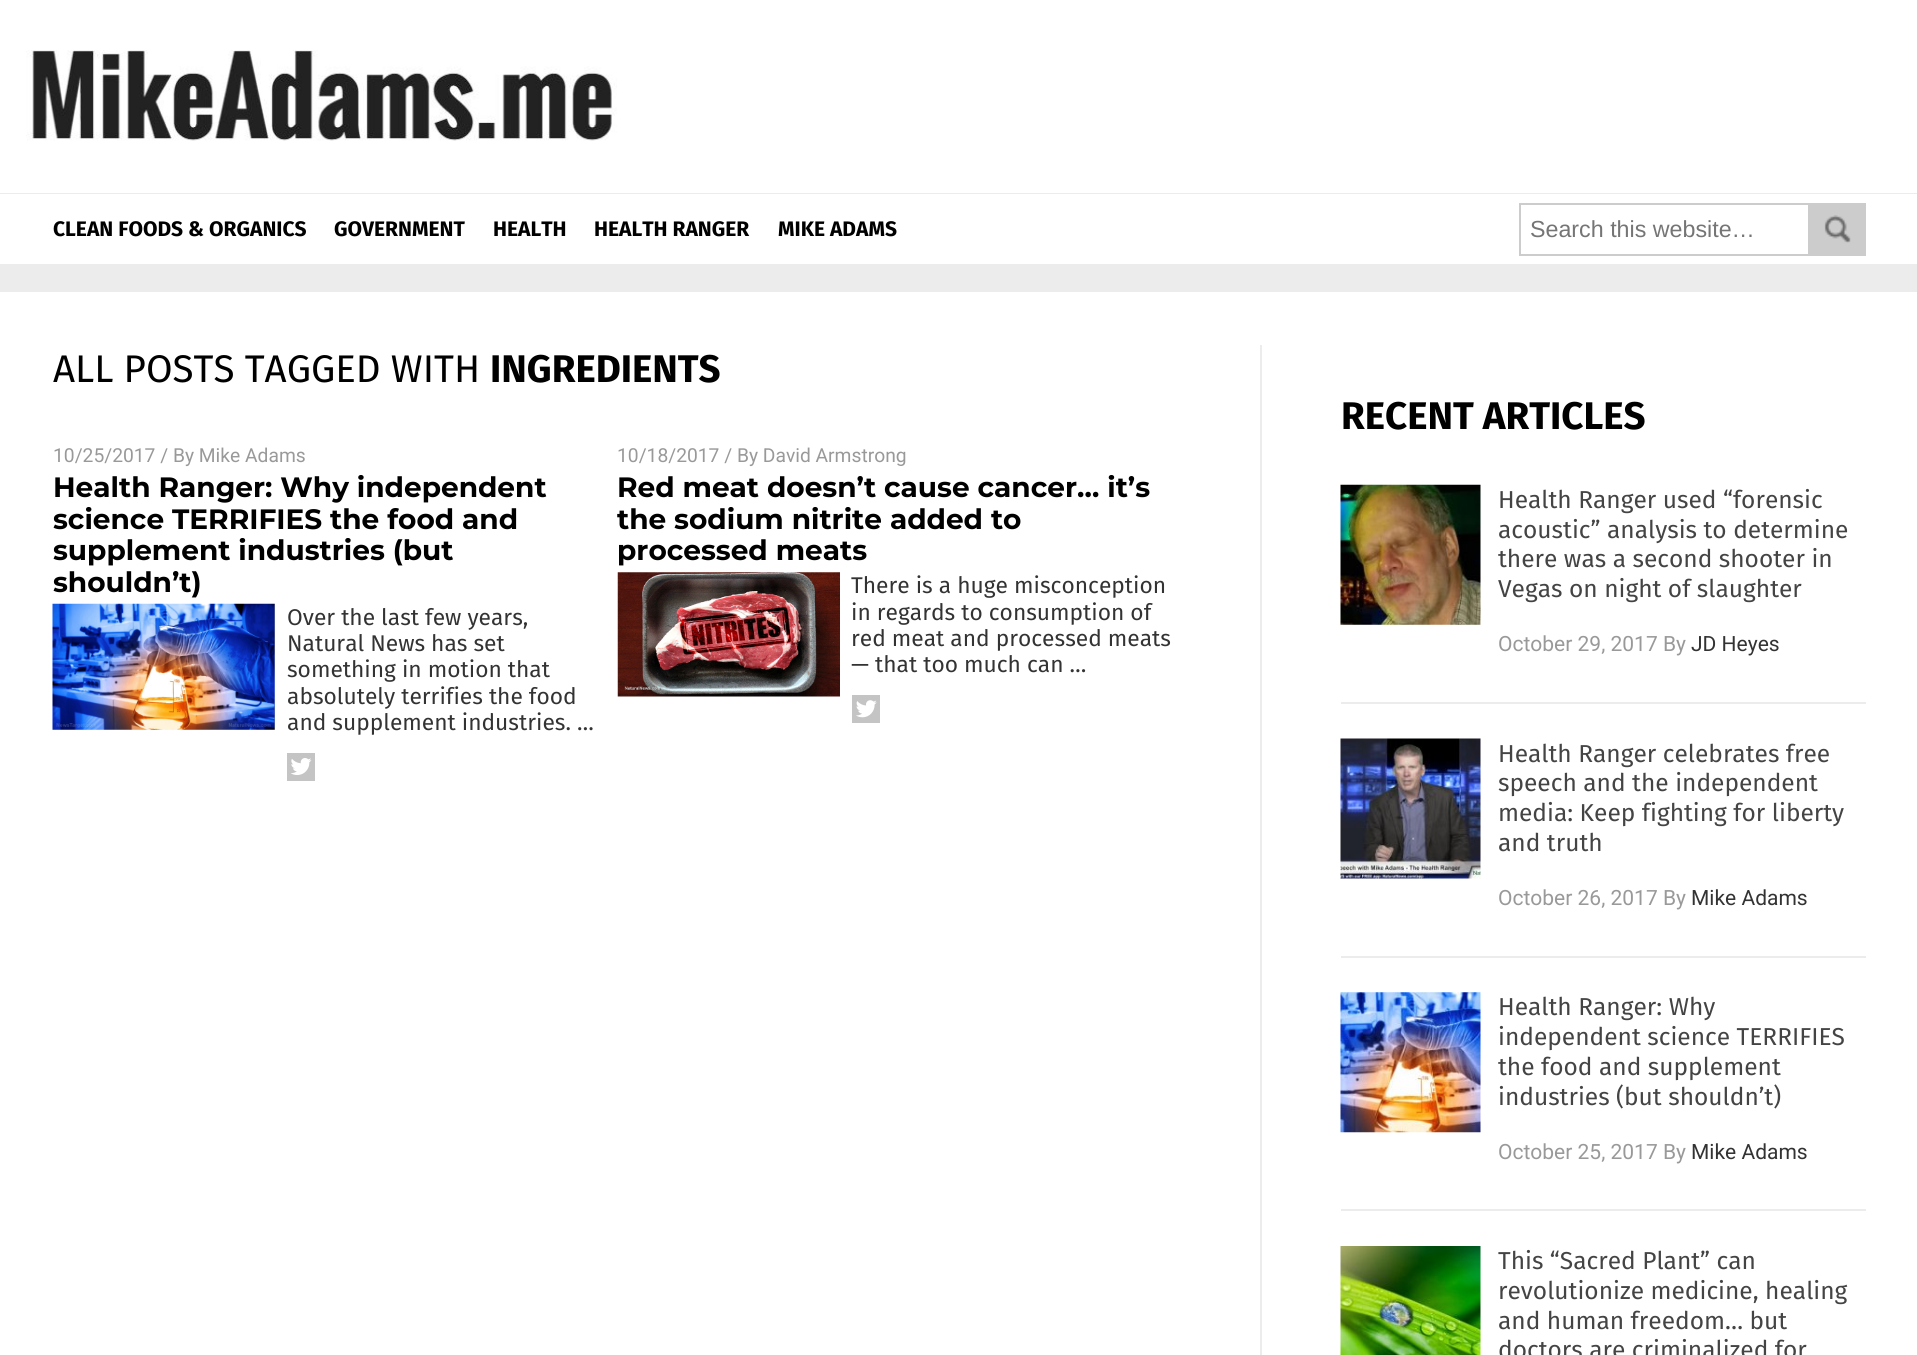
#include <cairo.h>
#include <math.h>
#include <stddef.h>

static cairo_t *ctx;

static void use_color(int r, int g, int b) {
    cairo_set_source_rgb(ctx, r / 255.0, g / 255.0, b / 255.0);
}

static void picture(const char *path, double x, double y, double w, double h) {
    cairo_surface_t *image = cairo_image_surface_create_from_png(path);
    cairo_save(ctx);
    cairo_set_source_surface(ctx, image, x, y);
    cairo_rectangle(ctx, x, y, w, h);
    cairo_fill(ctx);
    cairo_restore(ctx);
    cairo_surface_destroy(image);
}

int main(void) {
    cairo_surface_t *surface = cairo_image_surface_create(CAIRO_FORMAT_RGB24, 1917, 1355);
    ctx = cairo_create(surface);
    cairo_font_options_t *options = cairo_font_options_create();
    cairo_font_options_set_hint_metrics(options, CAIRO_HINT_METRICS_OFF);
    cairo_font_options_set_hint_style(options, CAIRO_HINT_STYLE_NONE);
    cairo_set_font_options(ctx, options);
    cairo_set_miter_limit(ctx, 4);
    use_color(236, 236, 236);
    cairo_paint(ctx);
    use_color(255, 255, 255);
    cairo_rectangle(ctx, 0, 0, 1917, 193);
    cairo_fill(ctx);
    picture("img1.png", 26, 50, 591, 91);
    cairo_rectangle(ctx, 0, 194, 1917, 70);
    cairo_fill(ctx);
    cairo_select_font_face(ctx, "Fira Sans", CAIRO_FONT_SLANT_NORMAL, CAIRO_FONT_WEIGHT_BOLD);
    cairo_set_font_size(ctx, 21);
    use_color(0, 0, 0);
    cairo_move_to(ctx, 53, 236);
    cairo_show_text(ctx, "CLEAN FOODS & ORGANICS");
    cairo_move_to(ctx, 334, 236);
    cairo_show_text(ctx, "GOVERNMENT");
    cairo_move_to(ctx, 493, 236);
    cairo_show_text(ctx, "HEALTH");
    cairo_move_to(ctx, 594, 236);
    cairo_show_text(ctx, "HEALTH RANGER");
    cairo_move_to(ctx, 778, 236);
    cairo_show_text(ctx, "MIKE ADAMS");
    cairo_rectangle(ctx, 1520, 204, 289, 51);
    use_color(204, 204, 204);
    cairo_stroke(ctx);
    cairo_select_font_face(ctx, "Liberation Sans", CAIRO_FONT_SLANT_NORMAL, CAIRO_FONT_WEIGHT_NORMAL);
    cairo_set_font_size(ctx, 23.25);
    use_color(117, 117, 117);
    cairo_move_to(ctx, 1530, 237);
    cairo_show_text(ctx, "Search this website…");
    use_color(204, 204, 204);
    cairo_rectangle(ctx, 1810, 203, 56, 53);
    cairo_fill(ctx);
    picture("img2.png", 1824, 215, 27, 28);
    use_color(255, 255, 255);
    cairo_rectangle(ctx, 0, 292, 1917, 1063);
    cairo_fill(ctx);
    use_color(236, 236, 236);
    cairo_rectangle(ctx, 1260, 345, 2, 1010);
    cairo_fill(ctx);
    cairo_select_font_face(ctx, "Fira Sans", CAIRO_FONT_SLANT_NORMAL, CAIRO_FONT_WEIGHT_NORMAL);
    cairo_set_font_size(ctx, 38.5);
    use_color(0, 0, 0);
    cairo_move_to(ctx, 53, 382);
    cairo_show_text(ctx, "ALL POSTS TAGGED WITH");
    cairo_select_font_face(ctx, "Fira Sans", CAIRO_FONT_SLANT_NORMAL, CAIRO_FONT_WEIGHT_BOLD);
    cairo_move_to(ctx, 490, 382);
    cairo_show_text(ctx, "INGREDIENTS");
    cairo_select_font_face(ctx, "Roboto", CAIRO_FONT_SLANT_NORMAL, CAIRO_FONT_WEIGHT_NORMAL);
    cairo_set_font_size(ctx, 19.25);
    use_color(153, 153, 153);
    cairo_move_to(ctx, 53, 462);
    cairo_show_text(ctx, "10/25/2017 / By Mike Adams");
    cairo_select_font_face(ctx, "Montserrat", CAIRO_FONT_SLANT_NORMAL, CAIRO_FONT_WEIGHT_BOLD);
    cairo_set_font_size(ctx, 28);
    use_color(0, 0, 0);
    cairo_move_to(ctx, 53, 497);
    cairo_show_text(ctx, "Health Ranger: Why independent");
    cairo_move_to(ctx, 53, 529);
    cairo_show_text(ctx, "science TERRIFIES the food and");
    cairo_move_to(ctx, 53, 560);
    cairo_show_text(ctx, "supplement industries (but");
    cairo_move_to(ctx, 53, 592);
    cairo_show_text(ctx, "shouldn’t)");
    picture("img3.png", 52, 603, 223, 127);
    cairo_select_font_face(ctx, "Fira Sans", CAIRO_FONT_SLANT_NORMAL, CAIRO_FONT_WEIGHT_NORMAL);
    cairo_set_font_size(ctx, 22.75);
    use_color(51, 51, 51);
    cairo_move_to(ctx, 287, 625);
    cairo_show_text(ctx, "Over the last few years,");
    cairo_move_to(ctx, 287, 651);
    cairo_show_text(ctx, "Natural News has set");
    cairo_move_to(ctx, 287, 677);
    cairo_show_text(ctx, "something in motion that");
    cairo_move_to(ctx, 287, 704);
    cairo_show_text(ctx, "absolutely terrifies the food");
    cairo_move_to(ctx, 287, 730);
    cairo_show_text(ctx, "and supplement industries. …");
    use_color(196, 196, 196);
    cairo_rectangle(ctx, 287, 753, 28, 28);
    cairo_fill(ctx);
    picture("img4.png", 291, 758, 21, 17);
    cairo_select_font_face(ctx, "Roboto", CAIRO_FONT_SLANT_NORMAL, CAIRO_FONT_WEIGHT_NORMAL);
    cairo_set_font_size(ctx, 19.25);
    use_color(153, 153, 153);
    cairo_move_to(ctx, 617, 462);
    cairo_show_text(ctx, "10/18/2017 / By David Armstrong");
    cairo_select_font_face(ctx, "Montserrat", CAIRO_FONT_SLANT_NORMAL, CAIRO_FONT_WEIGHT_BOLD);
    cairo_set_font_size(ctx, 28);
    use_color(0, 0, 0);
    cairo_move_to(ctx, 617, 497);
    cairo_show_text(ctx, "Red meat doesn’t cause cancer… it’s");
    cairo_move_to(ctx, 617, 529);
    cairo_show_text(ctx, "the sodium nitrite added to");
    cairo_move_to(ctx, 617, 560);
    cairo_show_text(ctx, "processed meats");
    picture("img5.png", 617, 572, 223, 125);
    cairo_select_font_face(ctx, "Fira Sans", CAIRO_FONT_SLANT_NORMAL, CAIRO_FONT_WEIGHT_NORMAL);
    cairo_set_font_size(ctx, 22.75);
    use_color(51, 51, 51);
    cairo_move_to(ctx, 851, 593);
    cairo_show_text(ctx, "There is a huge misconception");
    cairo_move_to(ctx, 851, 620);
    cairo_show_text(ctx, "in regards to consumption of");
    cairo_move_to(ctx, 851, 646);
    cairo_show_text(ctx, "red meat and processed meats");
    cairo_move_to(ctx, 851, 672);
    cairo_show_text(ctx, "— that too much can …");
    use_color(196, 196, 196);
    cairo_rectangle(ctx, 852, 695, 28, 28);
    cairo_fill(ctx);
    picture("img6.png", 856, 700, 21, 18);
    cairo_select_font_face(ctx, "Fira Sans", CAIRO_FONT_SLANT_NORMAL, CAIRO_FONT_WEIGHT_BOLD);
    cairo_set_font_size(ctx, 38.5);
    use_color(0, 0, 0);
    cairo_move_to(ctx, 1341, 429);
    cairo_show_text(ctx, "RECENT ARTICLES");
    use_color(236, 236, 236);
    cairo_rectangle(ctx, 1341, 702, 525, 2);
    cairo_fill(ctx);
    picture("img7.png", 1340, 484, 141, 141);
    cairo_select_font_face(ctx, "Fira Sans", CAIRO_FONT_SLANT_NORMAL, CAIRO_FONT_WEIGHT_NORMAL);
    cairo_set_font_size(ctx, 24.5);
    use_color(68, 68, 68);
    cairo_move_to(ctx, 1498, 508);
    cairo_show_text(ctx, "Health Ranger used “forensic");
    cairo_move_to(ctx, 1498, 538);
    cairo_show_text(ctx, "acoustic” analysis to determine");
    cairo_move_to(ctx, 1498, 567);
    cairo_show_text(ctx, "there was a second shooter in");
    cairo_move_to(ctx, 1498, 597);
    cairo_show_text(ctx, "Vegas on night of slaughter");
    cairo_select_font_face(ctx, "Roboto", CAIRO_FONT_SLANT_NORMAL, CAIRO_FONT_WEIGHT_NORMAL);
    cairo_set_font_size(ctx, 21);
    use_color(153, 153, 153);
    cairo_move_to(ctx, 1498, 651);
    cairo_show_text(ctx, "October 29, 2017 By");
    use_color(51, 51, 51);
    cairo_move_to(ctx, 1691, 651);
    cairo_show_text(ctx, "JD Heyes");
    use_color(236, 236, 236);
    cairo_rectangle(ctx, 1341, 956, 525, 2);
    cairo_fill(ctx);
    picture("img8.png", 1340, 738, 141, 141);
    cairo_select_font_face(ctx, "Fira Sans", CAIRO_FONT_SLANT_NORMAL, CAIRO_FONT_WEIGHT_NORMAL);
    cairo_set_font_size(ctx, 24.5);
    use_color(68, 68, 68);
    cairo_move_to(ctx, 1498, 762);
    cairo_show_text(ctx, "Health Ranger celebrates free");
    cairo_move_to(ctx, 1498, 791);
    cairo_show_text(ctx, "speech and the independent");
    cairo_move_to(ctx, 1498, 821);
    cairo_show_text(ctx, "media: Keep fighting for liberty");
    cairo_move_to(ctx, 1498, 851);
    cairo_show_text(ctx, "and truth");
    cairo_select_font_face(ctx, "Roboto", CAIRO_FONT_SLANT_NORMAL, CAIRO_FONT_WEIGHT_NORMAL);
    cairo_set_font_size(ctx, 21);
    use_color(153, 153, 153);
    cairo_move_to(ctx, 1498, 905);
    cairo_show_text(ctx, "October 26, 2017 By");
    use_color(51, 51, 51);
    cairo_move_to(ctx, 1691, 905);
    cairo_show_text(ctx, "Mike Adams");
    use_color(236, 236, 236);
    cairo_rectangle(ctx, 1341, 1209, 525, 2);
    cairo_fill(ctx);
    picture("img9.png", 1340, 992, 141, 141);
    cairo_select_font_face(ctx, "Fira Sans", CAIRO_FONT_SLANT_NORMAL, CAIRO_FONT_WEIGHT_NORMAL);
    cairo_set_font_size(ctx, 24.5);
    use_color(68, 68, 68);
    cairo_move_to(ctx, 1498, 1015);
    cairo_show_text(ctx, "Health Ranger: Why");
    cairo_move_to(ctx, 1498, 1045);
    cairo_show_text(ctx, "independent science TERRIFIES");
    cairo_move_to(ctx, 1498, 1075);
    cairo_show_text(ctx, "the food and supplement");
    cairo_move_to(ctx, 1498, 1105);
    cairo_show_text(ctx, "industries (but shouldn’t)");
    cairo_select_font_face(ctx, "Roboto", CAIRO_FONT_SLANT_NORMAL, CAIRO_FONT_WEIGHT_NORMAL);
    cairo_set_font_size(ctx, 21);
    use_color(153, 153, 153);
    cairo_move_to(ctx, 1498, 1159);
    cairo_show_text(ctx, "October 25, 2017 By");
    use_color(51, 51, 51);
    cairo_move_to(ctx, 1691, 1159);
    cairo_show_text(ctx, "Mike Adams");
    picture("img10.png", 1340, 1246, 141, 109);
    cairo_select_font_face(ctx, "Fira Sans", CAIRO_FONT_SLANT_NORMAL, CAIRO_FONT_WEIGHT_NORMAL);
    cairo_set_font_size(ctx, 24.5);
    use_color(68, 68, 68);
    cairo_move_to(ctx, 1498, 1269);
    cairo_show_text(ctx, "This “Sacred Plant” can");
    cairo_move_to(ctx, 1498, 1299);
    cairo_show_text(ctx, "revolutionize medicine, healing");
    cairo_move_to(ctx, 1498, 1329);
    cairo_show_text(ctx, "and human freedom… but");
    cairo_move_to(ctx, 1498, 1358);
    cairo_show_text(ctx, "doctors are criminalized for");
    cairo_surface_write_to_png(surface, "result.png");
    cairo_font_options_destroy(options);
    cairo_destroy(ctx);
    cairo_surface_destroy(surface);
    return 0;
}
